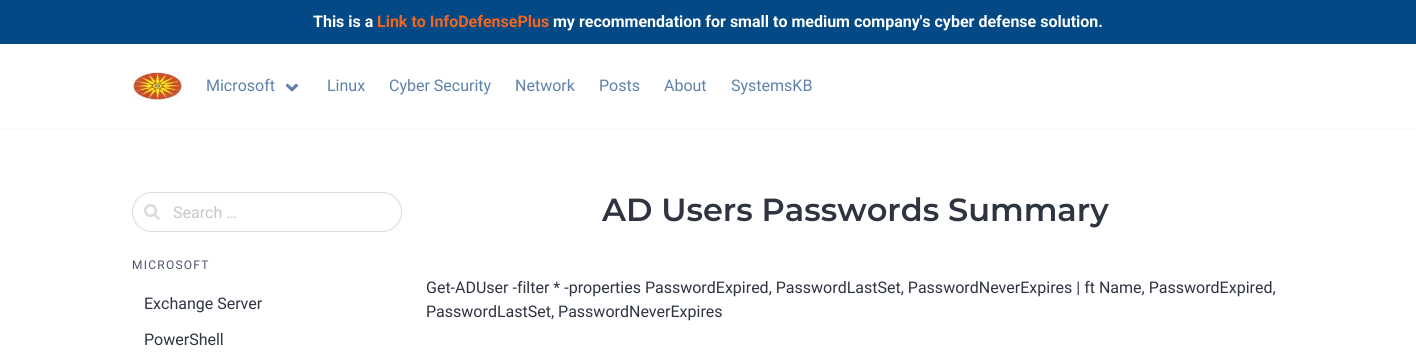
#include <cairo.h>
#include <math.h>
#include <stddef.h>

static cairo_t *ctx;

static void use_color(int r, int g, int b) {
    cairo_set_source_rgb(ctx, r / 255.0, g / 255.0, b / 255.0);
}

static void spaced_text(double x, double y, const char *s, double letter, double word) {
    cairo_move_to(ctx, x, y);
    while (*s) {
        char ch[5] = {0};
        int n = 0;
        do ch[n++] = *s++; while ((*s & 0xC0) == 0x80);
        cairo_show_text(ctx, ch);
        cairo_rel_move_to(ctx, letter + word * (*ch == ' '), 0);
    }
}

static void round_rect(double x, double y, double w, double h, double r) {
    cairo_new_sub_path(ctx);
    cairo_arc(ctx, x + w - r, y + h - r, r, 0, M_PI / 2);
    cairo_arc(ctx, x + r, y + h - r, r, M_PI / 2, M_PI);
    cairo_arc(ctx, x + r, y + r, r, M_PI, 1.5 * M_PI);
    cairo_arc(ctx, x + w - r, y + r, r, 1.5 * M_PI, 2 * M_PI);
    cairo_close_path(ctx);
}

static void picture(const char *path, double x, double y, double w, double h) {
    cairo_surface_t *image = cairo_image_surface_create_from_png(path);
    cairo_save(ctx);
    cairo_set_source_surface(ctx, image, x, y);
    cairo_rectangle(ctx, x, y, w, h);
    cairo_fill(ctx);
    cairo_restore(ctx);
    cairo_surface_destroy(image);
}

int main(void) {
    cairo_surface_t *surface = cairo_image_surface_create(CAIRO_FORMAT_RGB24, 1416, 354);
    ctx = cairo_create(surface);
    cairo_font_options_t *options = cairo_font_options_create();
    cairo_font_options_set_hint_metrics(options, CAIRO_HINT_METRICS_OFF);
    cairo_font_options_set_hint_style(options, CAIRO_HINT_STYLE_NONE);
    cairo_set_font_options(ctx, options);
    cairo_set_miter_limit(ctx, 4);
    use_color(255, 255, 255);
    cairo_paint(ctx);
    use_color(2, 73, 133);
    cairo_rectangle(ctx, 0, 0, 1416, 44);
    cairo_fill(ctx);
    cairo_select_font_face(ctx, "Roboto", CAIRO_FONT_SLANT_NORMAL, CAIRO_FONT_WEIGHT_BOLD);
    cairo_set_font_size(ctx, 16);
    use_color(255, 255, 255);
    cairo_move_to(ctx, 313, 27);
    cairo_show_text(ctx, "This is a");
    use_color(241, 101, 33);
    cairo_move_to(ctx, 377, 27);
    cairo_show_text(ctx, "Link to InfoDefensePlus");
    use_color(255, 255, 255);
    cairo_move_to(ctx, 553, 27);
    cairo_show_text(ctx, "my recommendation for small to medium company's cyber defense solution.");
    use_color(250, 250, 250);
    cairo_rectangle(ctx, 0, 128, 1416, 2);
    cairo_fill(ctx);
    picture("img1.png", 132, 72, 50, 28);
    cairo_select_font_face(ctx, "Roboto", CAIRO_FONT_SLANT_NORMAL, CAIRO_FONT_WEIGHT_NORMAL);
    use_color(94, 129, 172);
    cairo_move_to(ctx, 206, 91);
    cairo_show_text(ctx, "Microsoft");
    cairo_new_path(ctx);
    cairo_move_to(ctx, 290.5, 89);
    cairo_line_to(ctx, 296, 83.5);
    cairo_line_to(ctx, 298.5, 85.5);
    cairo_line_to(ctx, 292.5, 91.5);
    cairo_close_path(ctx);
    cairo_fill(ctx);
    cairo_new_path(ctx);
    cairo_move_to(ctx, 285.5, 85.5);
    cairo_line_to(ctx, 287.5, 83.5);
    cairo_line_to(ctx, 293.5, 89);
    cairo_line_to(ctx, 291.5, 91.5);
    cairo_close_path(ctx);
    cairo_fill(ctx);
    cairo_move_to(ctx, 327, 91);
    cairo_show_text(ctx, "Linux");
    cairo_move_to(ctx, 389, 91);
    cairo_show_text(ctx, "Cyber Security");
    cairo_move_to(ctx, 515, 91);
    cairo_show_text(ctx, "Network");
    cairo_move_to(ctx, 599, 91);
    cairo_show_text(ctx, "Posts");
    cairo_move_to(ctx, 664, 91);
    cairo_show_text(ctx, "About");
    cairo_move_to(ctx, 731, 91);
    cairo_show_text(ctx, "SystemsKB");
    round_rect(132.5, 192.5, 269, 39, 19.5);
    use_color(219, 219, 219);
    cairo_set_line_width(ctx, 1);
    cairo_stroke(ctx);
    picture("img2.png", 144, 204, 16, 16);
    use_color(196, 198, 203);
    cairo_move_to(ctx, 173, 218);
    cairo_show_text(ctx, "Search …");
    cairo_set_font_size(ctx, 12);
    use_color(76, 86, 106);
    spaced_text(132, 269, "MICROSOFT", 1.25, 0);
    cairo_set_font_size(ctx, 16);
    use_color(46, 52, 64);
    cairo_move_to(ctx, 144, 309);
    cairo_show_text(ctx, "Exchange Server");
    cairo_move_to(ctx, 144, 345);
    cairo_show_text(ctx, "PowerShell");
    cairo_select_font_face(ctx, "Montserrat SemiBold", CAIRO_FONT_SLANT_NORMAL, CAIRO_FONT_WEIGHT_NORMAL);
    cairo_set_font_size(ctx, 32);
    cairo_move_to(ctx, 602, 221);
    cairo_show_text(ctx, "AD Users Passwords Summary");
    cairo_select_font_face(ctx, "Roboto", CAIRO_FONT_SLANT_NORMAL, CAIRO_FONT_WEIGHT_NORMAL);
    cairo_set_font_size(ctx, 16);
    cairo_move_to(ctx, 426, 293);
    cairo_show_text(ctx, "Get-ADUser -filter * -properties PasswordExpired, PasswordLastSet, PasswordNeverExpires | ft Name, PasswordExpired,");
    cairo_move_to(ctx, 426, 317);
    cairo_show_text(ctx, "PasswordLastSet, PasswordNeverExpires");
    cairo_surface_write_to_png(surface, "result.png");
    cairo_font_options_destroy(options);
    cairo_destroy(ctx);
    cairo_surface_destroy(surface);
    return 0;
}
